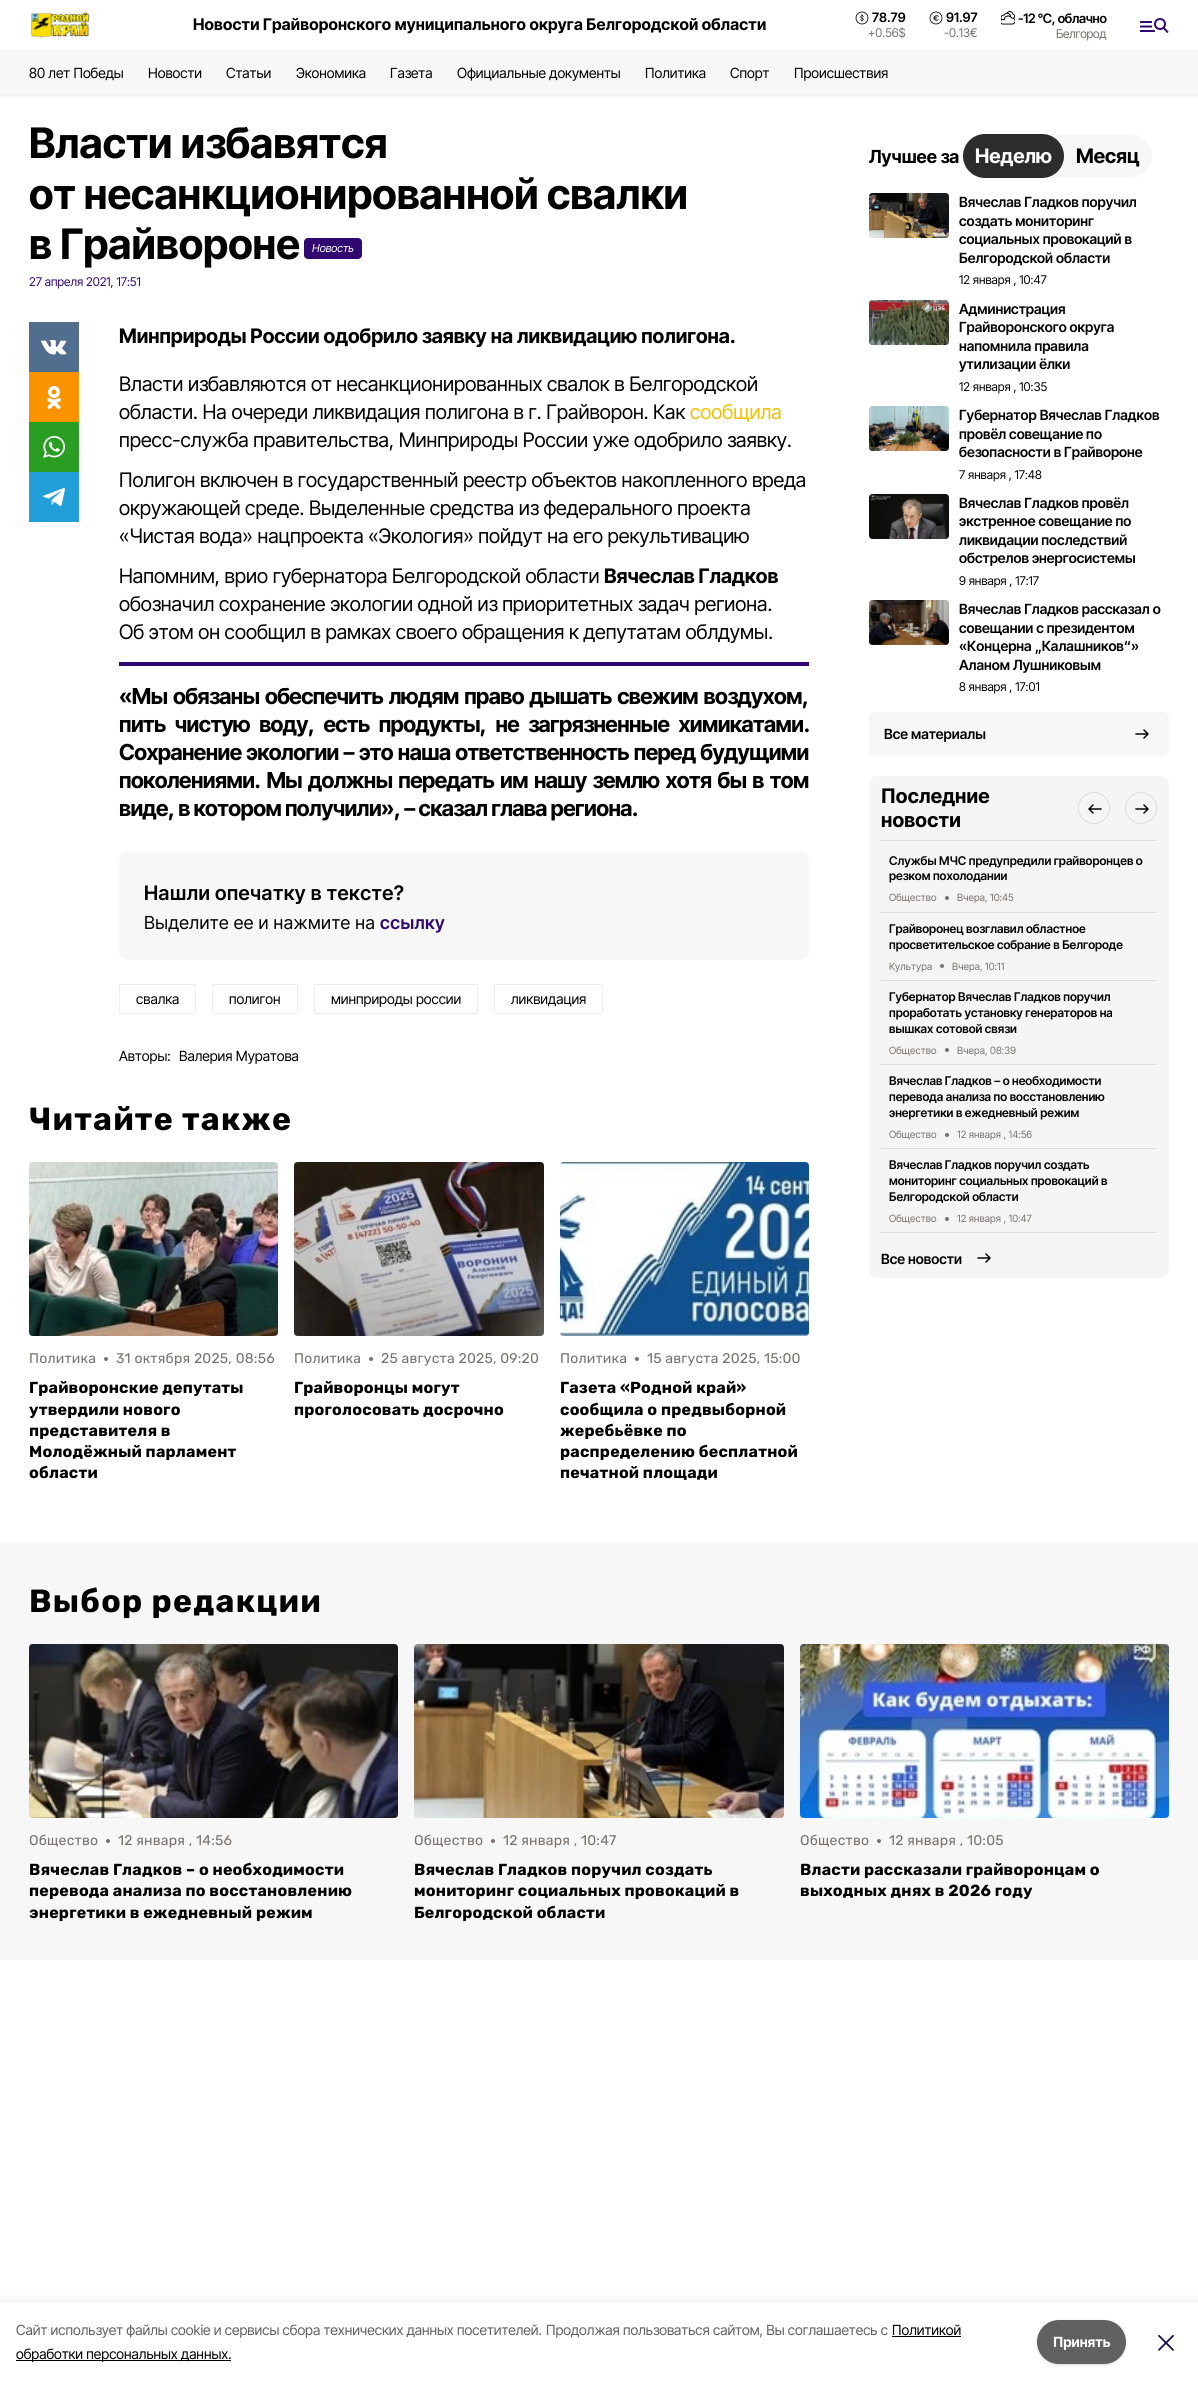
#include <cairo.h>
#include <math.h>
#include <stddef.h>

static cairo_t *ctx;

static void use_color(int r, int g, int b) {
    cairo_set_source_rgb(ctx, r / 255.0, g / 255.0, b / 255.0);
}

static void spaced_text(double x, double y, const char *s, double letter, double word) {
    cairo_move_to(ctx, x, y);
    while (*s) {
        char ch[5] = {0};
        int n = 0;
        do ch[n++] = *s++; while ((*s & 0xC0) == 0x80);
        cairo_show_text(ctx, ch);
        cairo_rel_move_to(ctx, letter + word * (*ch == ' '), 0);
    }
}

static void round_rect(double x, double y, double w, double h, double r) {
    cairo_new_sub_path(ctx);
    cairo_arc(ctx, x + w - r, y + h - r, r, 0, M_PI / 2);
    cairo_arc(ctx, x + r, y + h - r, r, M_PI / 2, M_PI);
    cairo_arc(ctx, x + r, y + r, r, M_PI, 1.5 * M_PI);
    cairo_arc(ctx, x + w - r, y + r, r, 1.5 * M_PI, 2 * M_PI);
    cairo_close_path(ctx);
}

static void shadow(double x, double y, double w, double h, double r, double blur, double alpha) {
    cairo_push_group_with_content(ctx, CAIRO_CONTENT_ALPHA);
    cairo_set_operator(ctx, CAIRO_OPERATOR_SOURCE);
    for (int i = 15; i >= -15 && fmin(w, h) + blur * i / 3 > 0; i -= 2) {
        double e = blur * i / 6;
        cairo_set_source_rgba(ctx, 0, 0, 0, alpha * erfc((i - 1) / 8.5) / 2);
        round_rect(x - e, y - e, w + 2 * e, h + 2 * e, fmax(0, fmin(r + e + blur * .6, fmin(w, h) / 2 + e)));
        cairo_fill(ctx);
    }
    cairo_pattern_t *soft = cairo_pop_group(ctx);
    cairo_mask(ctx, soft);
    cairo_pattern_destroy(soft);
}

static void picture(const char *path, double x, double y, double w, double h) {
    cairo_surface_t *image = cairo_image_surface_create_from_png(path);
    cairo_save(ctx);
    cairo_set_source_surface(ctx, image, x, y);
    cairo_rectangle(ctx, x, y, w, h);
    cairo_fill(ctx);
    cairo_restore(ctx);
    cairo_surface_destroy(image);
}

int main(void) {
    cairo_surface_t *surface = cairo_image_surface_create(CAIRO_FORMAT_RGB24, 1198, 2382);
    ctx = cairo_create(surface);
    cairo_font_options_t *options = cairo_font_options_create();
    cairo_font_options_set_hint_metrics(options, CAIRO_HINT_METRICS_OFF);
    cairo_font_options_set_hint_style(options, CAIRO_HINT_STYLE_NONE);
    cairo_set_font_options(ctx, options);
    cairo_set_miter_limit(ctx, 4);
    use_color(255, 255, 255);
    cairo_paint(ctx);
    picture("img1.png", 31, 12, 59, 26);
    cairo_select_font_face(ctx, "Inter Tight", CAIRO_FONT_SLANT_NORMAL, CAIRO_FONT_WEIGHT_BOLD);
    cairo_set_font_size(ctx, 16);
    use_color(0, 0, 0);
    spaced_text(193, 30, "Новости Грайворонского муниципального округа Белгородской области", 0.2, 0);
    picture("img2.png", 855, 11, 14, 14);
    cairo_select_font_face(ctx, "Inter Tight SemiBold", CAIRO_FONT_SLANT_NORMAL, CAIRO_FONT_WEIGHT_NORMAL);
    cairo_set_font_size(ctx, 13);
    cairo_move_to(ctx, 872, 22);
    cairo_show_text(ctx, "78.79");
    cairo_select_font_face(ctx, "Inter Tight", CAIRO_FONT_SLANT_NORMAL, CAIRO_FONT_WEIGHT_NORMAL);
    cairo_set_font_size(ctx, 12);
    use_color(120, 113, 108);
    cairo_move_to(ctx, 868, 37);
    cairo_show_text(ctx, "+0.56$");
    picture("img3.png", 929, 11, 14, 14);
    cairo_select_font_face(ctx, "Inter Tight SemiBold", CAIRO_FONT_SLANT_NORMAL, CAIRO_FONT_WEIGHT_NORMAL);
    cairo_set_font_size(ctx, 13);
    use_color(0, 0, 0);
    cairo_move_to(ctx, 946, 22);
    cairo_show_text(ctx, "91.97");
    cairo_select_font_face(ctx, "Inter Tight", CAIRO_FONT_SLANT_NORMAL, CAIRO_FONT_WEIGHT_NORMAL);
    cairo_set_font_size(ctx, 12);
    use_color(120, 113, 108);
    cairo_move_to(ctx, 944, 37);
    cairo_show_text(ctx, "-0.13€");
    picture("img4.png", 1001, 11, 14, 14);
    cairo_select_font_face(ctx, "Inter Tight SemiBold", CAIRO_FONT_SLANT_NORMAL, CAIRO_FONT_WEIGHT_NORMAL);
    cairo_set_font_size(ctx, 13);
    use_color(0, 0, 0);
    spaced_text(1018, 23, "-12 °С, облачно", -0.3, 0);
    cairo_select_font_face(ctx, "Inter Tight", CAIRO_FONT_SLANT_NORMAL, CAIRO_FONT_WEIGHT_NORMAL);
    cairo_set_font_size(ctx, 12);
    use_color(120, 113, 108);
    spaced_text(1056, 38, "Белгород", -0.25, 0);
    picture("img5.png", 1140, 18, 29, 15);
    use_color(0, 0, 0);
    shadow(0, 52, 1198, 44, 0, 2, 0.08);
    use_color(247, 247, 247);
    cairo_rectangle(ctx, 0, 50, 1198, 44);
    cairo_fill(ctx);
    cairo_set_font_size(ctx, 14);
    use_color(0, 0, 0);
    cairo_move_to(ctx, 29, 78);
    cairo_show_text(ctx, "80 лет Победы");
    cairo_move_to(ctx, 148, 78);
    cairo_show_text(ctx, "Новости");
    cairo_move_to(ctx, 226, 78);
    cairo_show_text(ctx, "Статьи");
    cairo_move_to(ctx, 296, 78);
    cairo_show_text(ctx, "Экономика");
    cairo_move_to(ctx, 390, 78);
    cairo_show_text(ctx, "Газета");
    cairo_move_to(ctx, 457, 78);
    cairo_show_text(ctx, "Официальные документы");
    cairo_move_to(ctx, 645, 78);
    cairo_show_text(ctx, "Политика");
    cairo_move_to(ctx, 730, 78);
    cairo_show_text(ctx, "Спорт");
    cairo_move_to(ctx, 794, 78);
    cairo_show_text(ctx, "Происшествия");
    cairo_select_font_face(ctx, "Inter Tight", CAIRO_FONT_SLANT_NORMAL, CAIRO_FONT_WEIGHT_BOLD);
    cairo_set_font_size(ctx, 42);
    cairo_move_to(ctx, 29, 158);
    cairo_show_text(ctx, "Власти избавятся");
    cairo_move_to(ctx, 29, 209);
    cairo_show_text(ctx, "от несанкционированной свалки");
    cairo_move_to(ctx, 29, 259);
    cairo_show_text(ctx, "в Грайвороне");
    use_color(49, 7, 112);
    round_rect(304, 238, 58, 21, 4);
    cairo_fill(ctx);
    cairo_select_font_face(ctx, "Inter Tight", CAIRO_FONT_SLANT_ITALIC, CAIRO_FONT_WEIGHT_NORMAL);
    cairo_set_font_size(ctx, 11);
    use_color(255, 255, 255);
    cairo_move_to(ctx, 312, 252);
    cairo_show_text(ctx, "Новость");
    cairo_select_font_face(ctx, "Inter Tight", CAIRO_FONT_SLANT_NORMAL, CAIRO_FONT_WEIGHT_NORMAL);
    cairo_set_font_size(ctx, 12);
    use_color(49, 7, 112);
    cairo_move_to(ctx, 29, 286);
    cairo_show_text(ctx, "27 апреля 2021, 17:51");
    use_color(82, 110, 143);
    cairo_rectangle(ctx, 29, 322, 50, 50);
    cairo_fill(ctx);
    picture("img6.png", 41, 340, 26, 15);
    use_color(249, 148, 0);
    cairo_rectangle(ctx, 29, 372, 50, 50);
    cairo_fill(ctx);
    picture("img7.png", 47, 386, 14, 23);
    use_color(42, 158, 34);
    cairo_rectangle(ctx, 29, 422, 50, 50);
    cairo_fill(ctx);
    picture("img8.png", 43, 436, 22, 22);
    use_color(34, 158, 217);
    cairo_rectangle(ctx, 29, 472, 50, 50);
    cairo_fill(ctx);
    picture("img9.png", 43, 488, 22, 18);
    cairo_select_font_face(ctx, "Inter Tight", CAIRO_FONT_SLANT_NORMAL, CAIRO_FONT_WEIGHT_BOLD);
    cairo_set_font_size(ctx, 20);
    use_color(0, 0, 0);
    cairo_move_to(ctx, 119, 343);
    cairo_show_text(ctx, "Минприроды России одобрило заявку на ликвидацию полигона.");
    cairo_select_font_face(ctx, "Inter Tight", CAIRO_FONT_SLANT_NORMAL, CAIRO_FONT_WEIGHT_NORMAL);
    cairo_move_to(ctx, 119, 391);
    cairo_show_text(ctx, "Власти избавляются от несанкционированных свалок в Белгородской");
    cairo_move_to(ctx, 119, 419);
    cairo_show_text(ctx, "области. На очереди ликвидация полигона в г. Грайворон. Как");
    use_color(240, 192, 2);
    cairo_move_to(ctx, 690, 419);
    cairo_show_text(ctx, "сообщила");
    use_color(0, 0, 0);
    cairo_move_to(ctx, 119, 447);
    cairo_show_text(ctx, "пресс-служба правительства, Минприроды России уже одобрило заявку.");
    cairo_move_to(ctx, 119, 487);
    cairo_show_text(ctx, "Полигон включен в государственный реестр объектов накопленного вреда");
    cairo_move_to(ctx, 119, 515);
    cairo_show_text(ctx, "окружающей среде. Выделенные средства из федерального проекта");
    cairo_move_to(ctx, 119, 543);
    cairo_show_text(ctx, "«Чистая вода» нацпроекта «Экология» пойдут на его рекультивацию");
    cairo_move_to(ctx, 119, 583);
    cairo_show_text(ctx, "Напомним, врио губернатора Белгородской области");
    cairo_select_font_face(ctx, "Inter Tight", CAIRO_FONT_SLANT_NORMAL, CAIRO_FONT_WEIGHT_BOLD);
    cairo_move_to(ctx, 604, 583);
    cairo_show_text(ctx, "Вячеслав Гладков");
    cairo_select_font_face(ctx, "Inter Tight", CAIRO_FONT_SLANT_NORMAL, CAIRO_FONT_WEIGHT_NORMAL);
    cairo_move_to(ctx, 119, 611);
    cairo_show_text(ctx, "обозначил сохранение экологии одной из приоритетных задач региона.");
    cairo_move_to(ctx, 119, 639);
    cairo_show_text(ctx, "Об этом он сообщил в рамках своего обращения к депутатам облдумы.");
    use_color(49, 7, 112);
    cairo_rectangle(ctx, 119, 662, 690, 4);
    cairo_fill(ctx);
    cairo_select_font_face(ctx, "Inter Tight", CAIRO_FONT_SLANT_NORMAL, CAIRO_FONT_WEIGHT_BOLD);
    cairo_set_font_size(ctx, 22);
    use_color(0, 0, 0);
    spaced_text(119, 704, "«Мы обязаны обеспечить людям право дышать свежим воздухом,", -0.55, 1.75);
    spaced_text(119, 732, "пить чистую воду, есть продукты, не загрязненные химикатами.", -0.55, 5.25);
    spaced_text(119, 760, "Сохранение экологии – это наша ответственность перед будущими", -0.55, 1);
    spaced_text(119, 788, "поколениями. Мы должны передать им нашу землю хотя бы в том", -0.55, 2.1);
    spaced_text(119, 816, "виде, в котором получили», – сказал глава региона.", -0.55, 0);
    use_color(247, 247, 247);
    round_rect(119, 852, 690, 108, 8);
    cairo_fill(ctx);
    cairo_select_font_face(ctx, "Inter Tight SemiBold", CAIRO_FONT_SLANT_NORMAL, CAIRO_FONT_WEIGHT_NORMAL);
    cairo_set_font_size(ctx, 20);
    use_color(0, 0, 0);
    spaced_text(144, 900, "Нашли опечатку в тексте?", 0.5, 0);
    cairo_select_font_face(ctx, "Inter Tight", CAIRO_FONT_SLANT_NORMAL, CAIRO_FONT_WEIGHT_NORMAL);
    cairo_set_font_size(ctx, 18);
    spaced_text(144, 929, "Выделите ее и нажмите на", 0.45, 0);
    cairo_select_font_face(ctx, "Inter Tight SemiBold", CAIRO_FONT_SLANT_NORMAL, CAIRO_FONT_WEIGHT_NORMAL);
    use_color(49, 7, 112);
    spaced_text(380, 929, "ссылку", 0.45, 0);
    round_rect(119.5, 984.5, 76, 29, 1.5);
    use_color(238, 238, 238);
    cairo_set_line_width(ctx, 1);
    cairo_stroke(ctx);
    cairo_select_font_face(ctx, "Inter Tight", CAIRO_FONT_SLANT_NORMAL, CAIRO_FONT_WEIGHT_NORMAL);
    cairo_set_font_size(ctx, 14);
    use_color(0, 0, 0);
    cairo_move_to(ctx, 136, 1004);
    cairo_show_text(ctx, "свалка");
    round_rect(212.5, 984.5, 85, 29, 1.5);
    use_color(238, 238, 238);
    cairo_stroke(ctx);
    use_color(0, 0, 0);
    cairo_move_to(ctx, 229, 1004);
    cairo_show_text(ctx, "полигон");
    round_rect(314.5, 984.5, 163, 29, 1.5);
    use_color(238, 238, 238);
    cairo_stroke(ctx);
    use_color(0, 0, 0);
    cairo_move_to(ctx, 331, 1004);
    cairo_show_text(ctx, "минприроды россии");
    round_rect(494.5, 984.5, 108, 29, 1.5);
    use_color(238, 238, 238);
    cairo_stroke(ctx);
    use_color(0, 0, 0);
    cairo_move_to(ctx, 511, 1004);
    cairo_show_text(ctx, "ликвидация");
    cairo_move_to(ctx, 119, 1061);
    cairo_show_text(ctx, "Авторы:");
    cairo_move_to(ctx, 179, 1061);
    cairo_show_text(ctx, "Валерия Муратова");
    cairo_select_font_face(ctx, "Rubik", CAIRO_FONT_SLANT_NORMAL, CAIRO_FONT_WEIGHT_BOLD);
    cairo_set_font_size(ctx, 32);
    spaced_text(29, 1130, "Читайте также", 1.25, 0);
    picture("img10.png", 29, 1162, 249, 174);
    cairo_select_font_face(ctx, "Rubik", CAIRO_FONT_SLANT_NORMAL, CAIRO_FONT_WEIGHT_NORMAL);
    cairo_set_font_size(ctx, 14);
    use_color(120, 113, 108);
    spaced_text(29, 1363, "Политика", 0.2, 0);
    cairo_new_path(ctx);
    cairo_arc(ctx, 106, 1359, 2, 0, 2 * M_PI);
    cairo_fill(ctx);
    spaced_text(116, 1363, "31 октября 2025, 08:56", 0.2, 0);
    cairo_select_font_face(ctx, "Rubik", CAIRO_FONT_SLANT_NORMAL, CAIRO_FONT_WEIGHT_BOLD);
    cairo_set_font_size(ctx, 16);
    use_color(0, 0, 0);
    spaced_text(29, 1393, "Грайворонские депутаты", 0.2, 0);
    spaced_text(29, 1415, "утвердили нового", 0.2, 0);
    spaced_text(29, 1436, "представителя в", 0.2, 0);
    spaced_text(29, 1457, "Молодёжный парламент", 0.2, 0);
    spaced_text(29, 1478, "области", 0.2, 0);
    picture("img11.png", 294, 1162, 250, 174);
    cairo_select_font_face(ctx, "Rubik", CAIRO_FONT_SLANT_NORMAL, CAIRO_FONT_WEIGHT_NORMAL);
    cairo_set_font_size(ctx, 14);
    use_color(120, 113, 108);
    spaced_text(294, 1363, "Политика", 0.2, 0);
    cairo_new_path(ctx);
    cairo_arc(ctx, 371, 1359, 2, 0, 2 * M_PI);
    cairo_fill(ctx);
    spaced_text(381, 1363, "25 августа 2025, 09:20", 0.2, 0);
    cairo_select_font_face(ctx, "Rubik", CAIRO_FONT_SLANT_NORMAL, CAIRO_FONT_WEIGHT_BOLD);
    cairo_set_font_size(ctx, 16);
    use_color(0, 0, 0);
    spaced_text(294, 1393, "Грайворонцы могут", 0.2, 0);
    spaced_text(294, 1415, "проголосовать досрочно", 0.2, 0);
    picture("img12.png", 560, 1162, 249, 174);
    cairo_select_font_face(ctx, "Rubik", CAIRO_FONT_SLANT_NORMAL, CAIRO_FONT_WEIGHT_NORMAL);
    cairo_set_font_size(ctx, 14);
    use_color(120, 113, 108);
    spaced_text(560, 1363, "Политика", 0.2, 0);
    cairo_new_path(ctx);
    cairo_arc(ctx, 637, 1359, 2, 0, 2 * M_PI);
    cairo_fill(ctx);
    spaced_text(647, 1363, "15 августа 2025, 15:00", 0.2, 0);
    cairo_select_font_face(ctx, "Rubik", CAIRO_FONT_SLANT_NORMAL, CAIRO_FONT_WEIGHT_BOLD);
    cairo_set_font_size(ctx, 16);
    use_color(0, 0, 0);
    spaced_text(560, 1393, "Газета «Родной край»", 0.2, 0);
    spaced_text(560, 1415, "сообщила о предвыборной", 0.2, 0);
    spaced_text(560, 1436, "жеребьёвке по", 0.2, 0);
    spaced_text(560, 1457, "распределению бесплатной", 0.2, 0);
    spaced_text(560, 1478, "печатной площади", 0.2, 0);
    cairo_select_font_face(ctx, "Inter Tight", CAIRO_FONT_SLANT_NORMAL, CAIRO_FONT_WEIGHT_BOLD);
    cairo_set_font_size(ctx, 18);
    cairo_move_to(ctx, 869, 163);
    cairo_show_text(ctx, "Лучшее за");
    use_color(247, 247, 247);
    round_rect(963, 134, 189, 44, 22);
    cairo_fill(ctx);
    use_color(44, 44, 44);
    round_rect(963, 134, 101, 44, 22);
    cairo_fill(ctx);
    cairo_set_font_size(ctx, 20);
    use_color(255, 255, 255);
    cairo_move_to(ctx, 975, 163);
    cairo_show_text(ctx, "Неделю");
    use_color(0, 0, 0);
    cairo_move_to(ctx, 1076, 163);
    cairo_show_text(ctx, "Месяц");
    picture("img13.png", 869, 193, 80, 45);
    picture("img14.png", 869, 193, 80, 45);
    cairo_select_font_face(ctx, "Inter Tight SemiBold", CAIRO_FONT_SLANT_NORMAL, CAIRO_FONT_WEIGHT_NORMAL);
    cairo_set_font_size(ctx, 14);
    cairo_move_to(ctx, 959, 207);
    cairo_show_text(ctx, "Вячеслав Гладков поручил");
    cairo_move_to(ctx, 959, 226);
    cairo_show_text(ctx, "создать мониторинг");
    cairo_move_to(ctx, 959, 244);
    cairo_show_text(ctx, "социальных провокаций в");
    cairo_move_to(ctx, 959, 263);
    cairo_show_text(ctx, "Белгородской области");
    cairo_select_font_face(ctx, "Inter Tight", CAIRO_FONT_SLANT_NORMAL, CAIRO_FONT_WEIGHT_NORMAL);
    cairo_set_font_size(ctx, 12);
    cairo_move_to(ctx, 959, 284);
    cairo_show_text(ctx, "12 января , 10:47");
    picture("img15.png", 869, 300, 80, 45);
    picture("img16.png", 869, 300, 80, 45);
    cairo_select_font_face(ctx, "Inter Tight SemiBold", CAIRO_FONT_SLANT_NORMAL, CAIRO_FONT_WEIGHT_NORMAL);
    cairo_set_font_size(ctx, 14);
    cairo_move_to(ctx, 959, 314);
    cairo_show_text(ctx, "Администрация");
    cairo_move_to(ctx, 959, 332);
    cairo_show_text(ctx, "Грайворонского округа");
    cairo_move_to(ctx, 959, 351);
    cairo_show_text(ctx, "напомнила правила");
    cairo_move_to(ctx, 959, 369);
    cairo_show_text(ctx, "утилизации ёлки");
    cairo_select_font_face(ctx, "Inter Tight", CAIRO_FONT_SLANT_NORMAL, CAIRO_FONT_WEIGHT_NORMAL);
    cairo_set_font_size(ctx, 12);
    cairo_move_to(ctx, 959, 391);
    cairo_show_text(ctx, "12 января , 10:35");
    picture("img17.png", 869, 406, 80, 45);
    picture("img18.png", 869, 406, 80, 45);
    cairo_select_font_face(ctx, "Inter Tight SemiBold", CAIRO_FONT_SLANT_NORMAL, CAIRO_FONT_WEIGHT_NORMAL);
    cairo_set_font_size(ctx, 14);
    cairo_move_to(ctx, 959, 420);
    cairo_show_text(ctx, "Губернатор Вячеслав Гладков");
    cairo_move_to(ctx, 959, 439);
    cairo_show_text(ctx, "провёл совещание по");
    cairo_move_to(ctx, 959, 457);
    cairo_show_text(ctx, "безопасности в Грайвороне");
    cairo_select_font_face(ctx, "Inter Tight", CAIRO_FONT_SLANT_NORMAL, CAIRO_FONT_WEIGHT_NORMAL);
    cairo_set_font_size(ctx, 12);
    cairo_move_to(ctx, 959, 479);
    cairo_show_text(ctx, "7 января , 17:48");
    picture("img19.png", 869, 494, 80, 45);
    picture("img20.png", 869, 494, 80, 45);
    cairo_select_font_face(ctx, "Inter Tight SemiBold", CAIRO_FONT_SLANT_NORMAL, CAIRO_FONT_WEIGHT_NORMAL);
    cairo_set_font_size(ctx, 14);
    cairo_move_to(ctx, 959, 508);
    cairo_show_text(ctx, "Вячеслав Гладков провёл");
    cairo_move_to(ctx, 959, 526);
    cairo_show_text(ctx, "экстренное совещание по");
    cairo_move_to(ctx, 959, 545);
    cairo_show_text(ctx, "ликвидации последствий");
    cairo_move_to(ctx, 959, 563);
    cairo_show_text(ctx, "обстрелов энергосистемы");
    cairo_select_font_face(ctx, "Inter Tight", CAIRO_FONT_SLANT_NORMAL, CAIRO_FONT_WEIGHT_NORMAL);
    cairo_set_font_size(ctx, 12);
    cairo_move_to(ctx, 959, 585);
    cairo_show_text(ctx, "9 января , 17:17");
    picture("img21.png", 869, 600, 80, 45);
    picture("img22.png", 869, 600, 80, 45);
    cairo_select_font_face(ctx, "Inter Tight SemiBold", CAIRO_FONT_SLANT_NORMAL, CAIRO_FONT_WEIGHT_NORMAL);
    cairo_set_font_size(ctx, 14);
    cairo_move_to(ctx, 959, 614);
    cairo_show_text(ctx, "Вячеслав Гладков рассказал о");
    cairo_move_to(ctx, 959, 633);
    cairo_show_text(ctx, "совещании с президентом");
    cairo_move_to(ctx, 959, 651);
    cairo_show_text(ctx, "«Концерна „Калашников“»");
    cairo_move_to(ctx, 959, 670);
    cairo_show_text(ctx, "Аланом Лушниковым");
    cairo_select_font_face(ctx, "Inter Tight", CAIRO_FONT_SLANT_NORMAL, CAIRO_FONT_WEIGHT_NORMAL);
    cairo_set_font_size(ctx, 12);
    cairo_move_to(ctx, 959, 691);
    cairo_show_text(ctx, "8 января , 17:01");
    use_color(247, 247, 247);
    round_rect(869, 712, 300, 44, 6);
    cairo_fill(ctx);
    cairo_select_font_face(ctx, "Inter Tight SemiBold", CAIRO_FONT_SLANT_NORMAL, CAIRO_FONT_WEIGHT_NORMAL);
    cairo_set_font_size(ctx, 14);
    use_color(0, 0, 0);
    cairo_move_to(ctx, 884, 739);
    cairo_show_text(ctx, "Все материалы");
    cairo_new_path(ctx);
    cairo_move_to(ctx, 1144, 738);
    cairo_line_to(ctx, 1148, 734);
    cairo_move_to(ctx, 1148, 734);
    cairo_line_to(ctx, 1144, 730);
    cairo_move_to(ctx, 1148, 734);
    cairo_line_to(ctx, 1136, 734);
    cairo_set_line_width(ctx, 1.5);
    cairo_set_line_cap(ctx, CAIRO_LINE_CAP_ROUND);
    cairo_set_line_join(ctx, CAIRO_LINE_JOIN_ROUND);
    cairo_stroke(ctx);
    use_color(245, 245, 245);
    round_rect(869, 776, 300, 502, 8);
    cairo_fill(ctx);
    use_color(221, 221, 221);
    cairo_rectangle(ctx, 881, 840, 276, 1);
    cairo_fill(ctx);
    cairo_select_font_face(ctx, "Inter Tight", CAIRO_FONT_SLANT_NORMAL, CAIRO_FONT_WEIGHT_BOLD);
    cairo_set_font_size(ctx, 20);
    use_color(0, 0, 0);
    spaced_text(881, 803, "Последние", 0.2, 0);
    spaced_text(881, 827, "новости", 0.2, 0);
    cairo_new_path(ctx);
    cairo_arc(ctx, 1094, 808, 15.5, 0, 2 * M_PI);
    use_color(221, 221, 221);
    cairo_set_line_width(ctx, 1);
    cairo_set_line_cap(ctx, CAIRO_LINE_CAP_BUTT);
    cairo_set_line_join(ctx, CAIRO_LINE_JOIN_MITER);
    cairo_stroke(ctx);
    cairo_arc(ctx, 1141, 808, 15.5, 0, 2 * M_PI);
    cairo_stroke(ctx);
    cairo_new_path(ctx);
    cairo_move_to(ctx, 1093, 813);
    cairo_line_to(ctx, 1089, 809);
    cairo_move_to(ctx, 1089, 809);
    cairo_line_to(ctx, 1093, 805);
    cairo_move_to(ctx, 1089, 809);
    cairo_line_to(ctx, 1101, 809);
    cairo_move_to(ctx, 1144, 813);
    cairo_line_to(ctx, 1148, 809);
    cairo_move_to(ctx, 1148, 809);
    cairo_line_to(ctx, 1144, 805);
    cairo_move_to(ctx, 1148, 809);
    cairo_line_to(ctx, 1136, 809);
    use_color(0, 0, 0);
    cairo_set_line_width(ctx, 1.5);
    cairo_set_line_cap(ctx, CAIRO_LINE_CAP_ROUND);
    cairo_set_line_join(ctx, CAIRO_LINE_JOIN_ROUND);
    cairo_stroke(ctx);
    use_color(221, 221, 221);
    cairo_rectangle(ctx, 881, 912, 276, 1);
    cairo_fill(ctx);
    cairo_select_font_face(ctx, "Inter Tight SemiBold", CAIRO_FONT_SLANT_NORMAL, CAIRO_FONT_WEIGHT_NORMAL);
    cairo_set_font_size(ctx, 12);
    use_color(0, 0, 0);
    cairo_move_to(ctx, 889, 865);
    cairo_show_text(ctx, "Службы МЧС предупредили грайворонцев о");
    cairo_move_to(ctx, 889, 880);
    cairo_show_text(ctx, "резком похолодании");
    cairo_select_font_face(ctx, "Inter Tight", CAIRO_FONT_SLANT_NORMAL, CAIRO_FONT_WEIGHT_NORMAL);
    cairo_set_font_size(ctx, 10);
    use_color(120, 113, 108);
    spaced_text(889, 901, "Общество", 0.1, 0);
    cairo_new_path(ctx);
    cairo_arc(ctx, 947, 898, 2, 0, 2 * M_PI);
    cairo_fill(ctx);
    spaced_text(957, 901, "Вчера, 10:45", 0.1, 0);
    use_color(221, 221, 221);
    cairo_rectangle(ctx, 881, 980, 276, 1);
    cairo_fill(ctx);
    cairo_select_font_face(ctx, "Inter Tight SemiBold", CAIRO_FONT_SLANT_NORMAL, CAIRO_FONT_WEIGHT_NORMAL);
    cairo_set_font_size(ctx, 12);
    use_color(0, 0, 0);
    cairo_move_to(ctx, 889, 933);
    cairo_show_text(ctx, "Грайворонец возглавил областное");
    cairo_move_to(ctx, 889, 949);
    cairo_show_text(ctx, "просветительское собрание в Белгороде");
    cairo_select_font_face(ctx, "Inter Tight", CAIRO_FONT_SLANT_NORMAL, CAIRO_FONT_WEIGHT_NORMAL);
    cairo_set_font_size(ctx, 10);
    use_color(120, 113, 108);
    spaced_text(889, 970, "Культура", 0.1, 0);
    cairo_new_path(ctx);
    cairo_arc(ctx, 942, 966, 2, 0, 2 * M_PI);
    cairo_fill(ctx);
    spaced_text(952, 970, "Вчера, 10:11", 0.1, 0);
    use_color(221, 221, 221);
    cairo_rectangle(ctx, 881, 1064, 276, 1);
    cairo_fill(ctx);
    cairo_select_font_face(ctx, "Inter Tight SemiBold", CAIRO_FONT_SLANT_NORMAL, CAIRO_FONT_WEIGHT_NORMAL);
    cairo_set_font_size(ctx, 12);
    use_color(0, 0, 0);
    cairo_move_to(ctx, 889, 1001);
    cairo_show_text(ctx, "Губернатор Вячеслав Гладков поручил");
    cairo_move_to(ctx, 889, 1017);
    cairo_show_text(ctx, "проработать установку генераторов на");
    cairo_move_to(ctx, 889, 1033);
    cairo_show_text(ctx, "вышках сотовой связи");
    cairo_select_font_face(ctx, "Inter Tight", CAIRO_FONT_SLANT_NORMAL, CAIRO_FONT_WEIGHT_NORMAL);
    cairo_set_font_size(ctx, 10);
    use_color(120, 113, 108);
    spaced_text(889, 1054, "Общество", 0.1, 0);
    cairo_new_path(ctx);
    cairo_arc(ctx, 947, 1050, 2, 0, 2 * M_PI);
    cairo_fill(ctx);
    spaced_text(957, 1054, "Вчера, 08:39", 0.1, 0);
    use_color(221, 221, 221);
    cairo_rectangle(ctx, 881, 1148, 276, 1);
    cairo_fill(ctx);
    cairo_select_font_face(ctx, "Inter Tight SemiBold", CAIRO_FONT_SLANT_NORMAL, CAIRO_FONT_WEIGHT_NORMAL);
    cairo_set_font_size(ctx, 12);
    use_color(0, 0, 0);
    cairo_move_to(ctx, 889, 1085);
    cairo_show_text(ctx, "Вячеслав Гладков – о необходимости");
    cairo_move_to(ctx, 889, 1101);
    cairo_show_text(ctx, "перевода анализа по восстановлению");
    cairo_move_to(ctx, 889, 1117);
    cairo_show_text(ctx, "энергетики в ежедневный режим");
    cairo_select_font_face(ctx, "Inter Tight", CAIRO_FONT_SLANT_NORMAL, CAIRO_FONT_WEIGHT_NORMAL);
    cairo_set_font_size(ctx, 10);
    use_color(120, 113, 108);
    spaced_text(889, 1138, "Общество", 0.1, 0);
    cairo_new_path(ctx);
    cairo_arc(ctx, 947, 1135, 2, 0, 2 * M_PI);
    cairo_fill(ctx);
    spaced_text(957, 1138, "12 января , 14:56", 0.1, 0);
    use_color(221, 221, 221);
    cairo_rectangle(ctx, 881, 1232, 276, 1);
    cairo_fill(ctx);
    cairo_select_font_face(ctx, "Inter Tight SemiBold", CAIRO_FONT_SLANT_NORMAL, CAIRO_FONT_WEIGHT_NORMAL);
    cairo_set_font_size(ctx, 12);
    use_color(0, 0, 0);
    cairo_move_to(ctx, 889, 1169);
    cairo_show_text(ctx, "Вячеслав Гладков поручил создать");
    cairo_move_to(ctx, 889, 1185);
    cairo_show_text(ctx, "мониторинг социальных провокаций в");
    cairo_move_to(ctx, 889, 1201);
    cairo_show_text(ctx, "Белгородской области");
    cairo_select_font_face(ctx, "Inter Tight", CAIRO_FONT_SLANT_NORMAL, CAIRO_FONT_WEIGHT_NORMAL);
    cairo_set_font_size(ctx, 10);
    use_color(120, 113, 108);
    spaced_text(889, 1222, "Общество", 0.1, 0);
    cairo_new_path(ctx);
    cairo_arc(ctx, 947, 1219, 2, 0, 2 * M_PI);
    cairo_fill(ctx);
    spaced_text(957, 1222, "12 января , 10:47", 0.1, 0);
    cairo_select_font_face(ctx, "Inter Tight SemiBold", CAIRO_FONT_SLANT_NORMAL, CAIRO_FONT_WEIGHT_NORMAL);
    cairo_set_font_size(ctx, 14);
    use_color(0, 0, 0);
    cairo_move_to(ctx, 881, 1264);
    cairo_show_text(ctx, "Все новости");
    cairo_new_path(ctx);
    cairo_move_to(ctx, 986, 1262);
    cairo_line_to(ctx, 990, 1258);
    cairo_move_to(ctx, 990, 1258);
    cairo_line_to(ctx, 986, 1254);
    cairo_move_to(ctx, 990, 1258);
    cairo_line_to(ctx, 978, 1258);
    cairo_stroke(ctx);
    use_color(247, 247, 247);
    cairo_rectangle(ctx, 0, 1543, 1198, 417);
    cairo_fill(ctx);
    cairo_select_font_face(ctx, "Rubik", CAIRO_FONT_SLANT_NORMAL, CAIRO_FONT_WEIGHT_BOLD);
    cairo_set_font_size(ctx, 32);
    use_color(0, 0, 0);
    spaced_text(29, 1612, "Выбор редакции", 1.25, 0);
    picture("img23.png", 29, 1644, 369, 174);
    cairo_select_font_face(ctx, "Rubik", CAIRO_FONT_SLANT_NORMAL, CAIRO_FONT_WEIGHT_NORMAL);
    cairo_set_font_size(ctx, 14);
    use_color(120, 113, 108);
    spaced_text(29, 1845, "Общество", 0.2, 0);
    cairo_new_path(ctx);
    cairo_arc(ctx, 108, 1841, 2, 0, 2 * M_PI);
    cairo_fill(ctx);
    spaced_text(118, 1845, "12 января , 14:56", 0.2, 0);
    cairo_select_font_face(ctx, "Rubik", CAIRO_FONT_SLANT_NORMAL, CAIRO_FONT_WEIGHT_BOLD);
    cairo_set_font_size(ctx, 16);
    use_color(0, 0, 0);
    spaced_text(29, 1875, "Вячеслав Гладков – о необходимости", 0.2, 0);
    spaced_text(29, 1896, "перевода анализа по восстановлению", 0.2, 0);
    spaced_text(29, 1918, "энергетики в ежедневный режим", 0.2, 0);
    picture("img24.png", 414, 1644, 370, 174);
    cairo_select_font_face(ctx, "Rubik", CAIRO_FONT_SLANT_NORMAL, CAIRO_FONT_WEIGHT_NORMAL);
    cairo_set_font_size(ctx, 14);
    use_color(120, 113, 108);
    spaced_text(414, 1845, "Общество", 0.2, 0);
    cairo_new_path(ctx);
    cairo_arc(ctx, 493, 1841, 2, 0, 2 * M_PI);
    cairo_fill(ctx);
    spaced_text(503, 1845, "12 января , 10:47", 0.2, 0);
    cairo_select_font_face(ctx, "Rubik", CAIRO_FONT_SLANT_NORMAL, CAIRO_FONT_WEIGHT_BOLD);
    cairo_set_font_size(ctx, 16);
    use_color(0, 0, 0);
    spaced_text(414, 1875, "Вячеслав Гладков поручил создать", 0.2, 0);
    spaced_text(414, 1896, "мониторинг социальных провокаций в", 0.2, 0);
    spaced_text(414, 1918, "Белгородской области", 0.2, 0);
    picture("img25.png", 800, 1644, 369, 174);
    cairo_select_font_face(ctx, "Rubik", CAIRO_FONT_SLANT_NORMAL, CAIRO_FONT_WEIGHT_NORMAL);
    cairo_set_font_size(ctx, 14);
    use_color(120, 113, 108);
    spaced_text(800, 1845, "Общество", 0.2, 0);
    cairo_new_path(ctx);
    cairo_arc(ctx, 879, 1841, 2, 0, 2 * M_PI);
    cairo_fill(ctx);
    spaced_text(889, 1845, "12 января , 10:05", 0.2, 0);
    cairo_select_font_face(ctx, "Rubik", CAIRO_FONT_SLANT_NORMAL, CAIRO_FONT_WEIGHT_BOLD);
    cairo_set_font_size(ctx, 16);
    use_color(0, 0, 0);
    spaced_text(800, 1875, "Власти рассказали грайворонцам о", 0.2, 0);
    spaced_text(800, 1896, "выходных днях в 2026 году", 0.2, 0);
    use_color(0, 0, 0);
    shadow(0, 2302, 1198, 80, 0, 5, 0.1);
    use_color(255, 255, 255);
    cairo_rectangle(ctx, 0, 2302, 1198, 80);
    cairo_fill(ctx);
    cairo_select_font_face(ctx, "Inter Tight", CAIRO_FONT_SLANT_NORMAL, CAIRO_FONT_WEIGHT_NORMAL);
    cairo_set_font_size(ctx, 14);
    use_color(97, 97, 97);
    cairo_move_to(ctx, 16, 2335);
    cairo_show_text(ctx, "Cайт использует файлы cookie и сервисы сбора технических данных посетителей.");
    cairo_move_to(ctx, 546, 2335);
    cairo_show_text(ctx, "Продолжая пользоваться сайтом, Вы соглашаетесь с");
    use_color(0, 0, 0);
    cairo_move_to(ctx, 892, 2335);
    cairo_show_text(ctx, "Политикой");
    cairo_rectangle(ctx, 892, 2336, 69, 1);
    cairo_fill(ctx);
    cairo_rectangle(ctx, 16, 2360, 215, 1);
    cairo_fill(ctx);
    cairo_move_to(ctx, 16, 2359);
    cairo_show_text(ctx, "обработки персональных данных.");
    use_color(0, 0, 0);
    shadow(1038, 2322, 87, 42, 21, 1, 0.1);
    shadow(1037, 2321, 89, 44, 22, 1.5, 0.1);
    use_color(97, 97, 97);
    round_rect(1037, 2320, 89, 44, 22);
    cairo_fill(ctx);
    cairo_select_font_face(ctx, "Inter Tight", CAIRO_FONT_SLANT_NORMAL, CAIRO_FONT_WEIGHT_BOLD);
    use_color(255, 255, 255);
    cairo_move_to(ctx, 1053, 2347);
    cairo_show_text(ctx, "Принять");
    picture("img26.png", 1158, 2335, 16, 16);
    cairo_surface_write_to_png(surface, "result.png");
    cairo_font_options_destroy(options);
    cairo_destroy(ctx);
    cairo_surface_destroy(surface);
    return 0;
}
